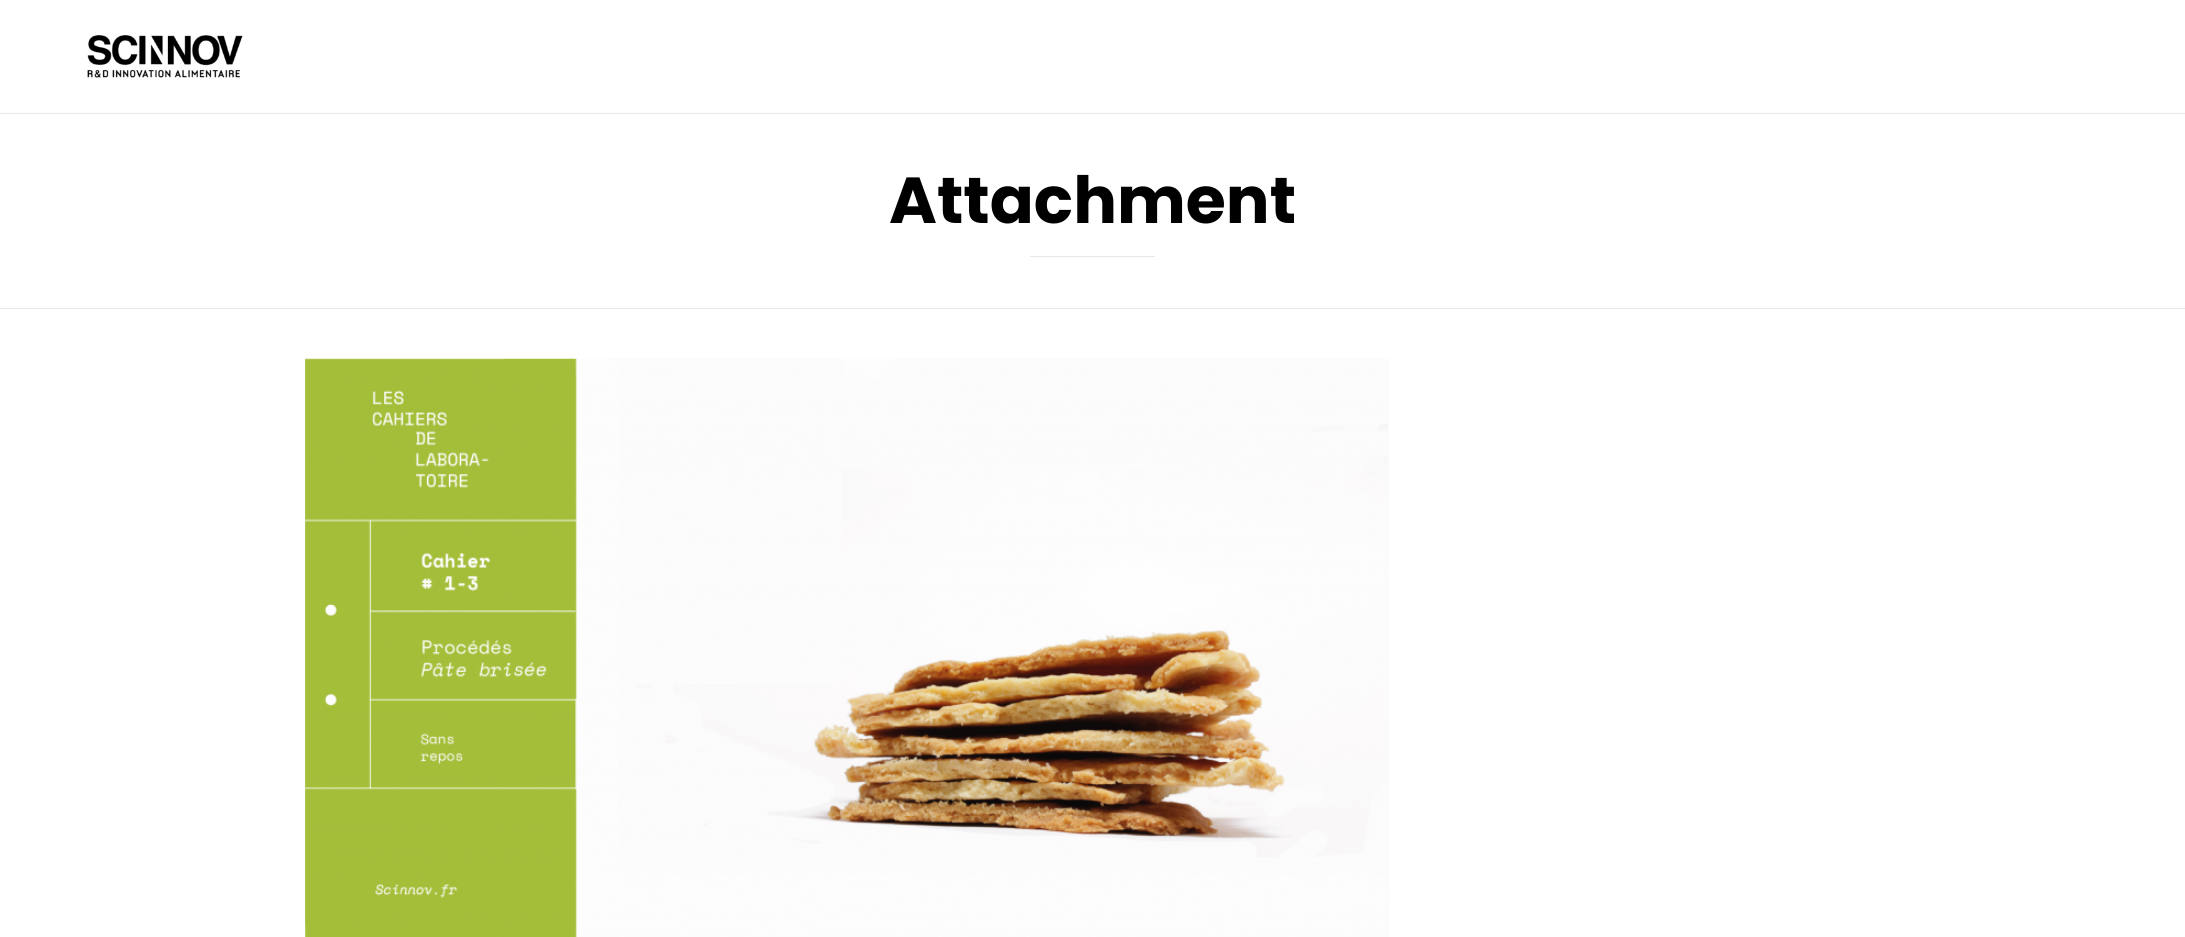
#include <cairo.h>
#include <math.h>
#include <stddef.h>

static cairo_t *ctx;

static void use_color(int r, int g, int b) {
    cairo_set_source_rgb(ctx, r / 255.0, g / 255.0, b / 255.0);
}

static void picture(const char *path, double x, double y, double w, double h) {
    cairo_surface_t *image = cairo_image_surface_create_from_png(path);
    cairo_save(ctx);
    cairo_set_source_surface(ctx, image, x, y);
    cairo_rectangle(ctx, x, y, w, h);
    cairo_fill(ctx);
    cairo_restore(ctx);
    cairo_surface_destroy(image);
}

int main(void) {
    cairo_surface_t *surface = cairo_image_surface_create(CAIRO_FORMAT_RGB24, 2185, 937);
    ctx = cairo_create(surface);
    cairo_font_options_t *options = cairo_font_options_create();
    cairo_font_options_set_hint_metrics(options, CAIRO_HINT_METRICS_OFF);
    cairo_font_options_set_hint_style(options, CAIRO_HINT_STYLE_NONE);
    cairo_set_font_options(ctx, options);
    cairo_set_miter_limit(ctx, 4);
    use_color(255, 255, 255);
    cairo_paint(ctx);
    picture("img1.png", 87, 35, 156, 43);
    use_color(232, 232, 232);
    cairo_rectangle(ctx, 0, 113, 2185, 1);
    cairo_fill(ctx);
    cairo_rectangle(ctx, 0, 308, 2185, 1);
    cairo_fill(ctx);
    cairo_select_font_face(ctx, "Poppins", CAIRO_FONT_SLANT_NORMAL, CAIRO_FONT_WEIGHT_BOLD);
    cairo_set_font_size(ctx, 65);
    use_color(0, 0, 0);
    cairo_move_to(ctx, 889, 223);
    cairo_show_text(ctx, "Attachment");
    use_color(232, 232, 232);
    cairo_rectangle(ctx, 1030, 256, 125, 1);
    cairo_fill(ctx);
    picture("img2.png", 305, 358, 1084, 579);
    cairo_surface_write_to_png(surface, "result.png");
    cairo_font_options_destroy(options);
    cairo_destroy(ctx);
    cairo_surface_destroy(surface);
    return 0;
}
